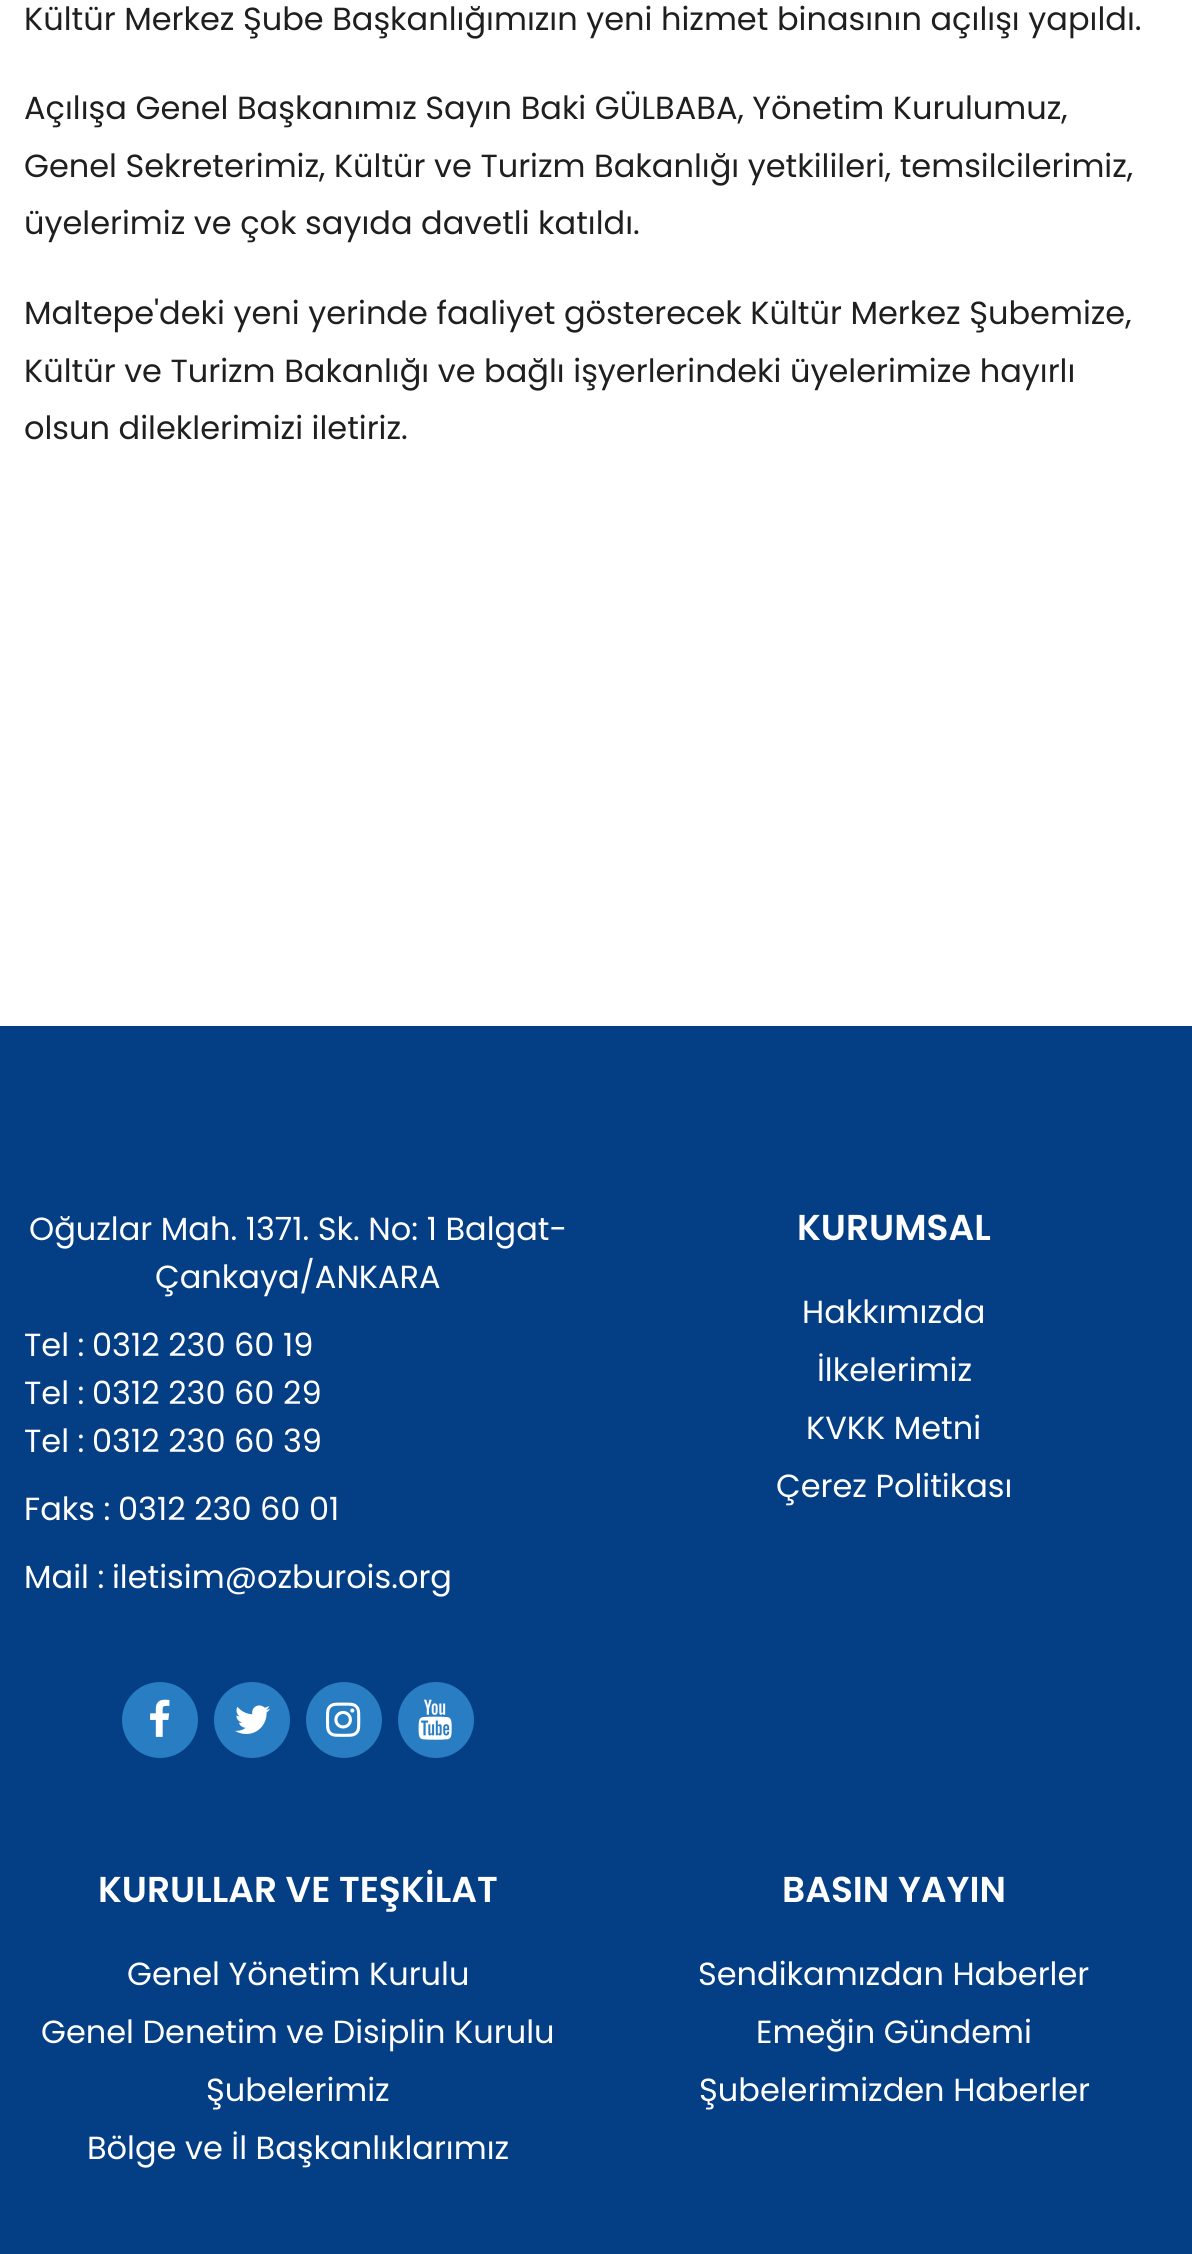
#include <cairo.h>
#include <math.h>
#include <stddef.h>

static cairo_t *ctx;

static void use_color(int r, int g, int b) {
    cairo_set_source_rgb(ctx, r / 255.0, g / 255.0, b / 255.0);
}

static void picture(const char *path, double x, double y, double w, double h) {
    cairo_surface_t *image = cairo_image_surface_create_from_png(path);
    cairo_save(ctx);
    cairo_set_source_surface(ctx, image, x, y);
    cairo_rectangle(ctx, x, y, w, h);
    cairo_fill(ctx);
    cairo_restore(ctx);
    cairo_surface_destroy(image);
}

int main(void) {
    cairo_surface_t *surface = cairo_image_surface_create(CAIRO_FORMAT_RGB24, 1192, 2254);
    ctx = cairo_create(surface);
    cairo_font_options_t *options = cairo_font_options_create();
    cairo_font_options_set_hint_metrics(options, CAIRO_HINT_METRICS_OFF);
    cairo_font_options_set_hint_style(options, CAIRO_HINT_STYLE_NONE);
    cairo_set_font_options(ctx, options);
    cairo_set_miter_limit(ctx, 4);
    use_color(255, 255, 255);
    cairo_paint(ctx);
    cairo_select_font_face(ctx, "Poppins", CAIRO_FONT_SLANT_NORMAL, CAIRO_FONT_WEIGHT_NORMAL);
    cairo_set_font_size(ctx, 32);
    use_color(32, 31, 31);
    cairo_move_to(ctx, 24, 30);
    cairo_show_text(ctx, "Kültür Merkez Şube Başkanlığımızın yeni hizmet binasının açılışı yapıldı.");
    cairo_move_to(ctx, 24, 119);
    cairo_show_text(ctx, "Açılışa Genel Başkanımız Sayın Baki GÜLBABA, Yönetim Kurulumuz,");
    cairo_move_to(ctx, 24, 177);
    cairo_show_text(ctx, "Genel Sekreterimiz, Kültür ve Turizm Bakanlığı yetkilileri, temsilcilerimiz,");
    cairo_move_to(ctx, 24, 234);
    cairo_show_text(ctx, "üyelerimiz ve çok sayıda davetli katıldı.");
    cairo_move_to(ctx, 24, 324);
    cairo_show_text(ctx, "Maltepe'deki yeni yerinde faaliyet gösterecek Kültür Merkez Şubemize,");
    cairo_move_to(ctx, 24, 382);
    cairo_show_text(ctx, "Kültür ve Turizm Bakanlığı ve bağlı işyerlerindeki üyelerimize hayırlı");
    cairo_move_to(ctx, 24, 439);
    cairo_show_text(ctx, "olsun dileklerimizi iletiriz.");
    use_color(4, 62, 133);
    cairo_rectangle(ctx, 0, 1026, 1192, 1228);
    cairo_fill(ctx);
    use_color(255, 255, 255);
    cairo_move_to(ctx, 29, 1240);
    cairo_show_text(ctx, "Oğuzlar Mah. 1371. Sk. No: 1 Balgat-");
    cairo_move_to(ctx, 155, 1288);
    cairo_show_text(ctx, "Çankaya/ANKARA");
    cairo_move_to(ctx, 24, 1356);
    cairo_show_text(ctx, "Tel :");
    cairo_move_to(ctx, 92, 1356);
    cairo_show_text(ctx, "0312 230 60 19");
    cairo_move_to(ctx, 24, 1404);
    cairo_show_text(ctx, "Tel :");
    cairo_move_to(ctx, 92, 1404);
    cairo_show_text(ctx, "0312 230 60 29");
    cairo_move_to(ctx, 24, 1452);
    cairo_show_text(ctx, "Tel :");
    cairo_move_to(ctx, 92, 1452);
    cairo_show_text(ctx, "0312 230 60 39");
    cairo_move_to(ctx, 24, 1520);
    cairo_show_text(ctx, "Faks :");
    cairo_move_to(ctx, 118, 1520);
    cairo_show_text(ctx, "0312 230 60 01");
    cairo_move_to(ctx, 24, 1588);
    cairo_show_text(ctx, "Mail :");
    cairo_move_to(ctx, 112, 1588);
    cairo_show_text(ctx, "iletisim@ozburois.org");
    use_color(41, 125, 195);
    cairo_new_path(ctx);
    cairo_arc(ctx, 160, 1720, 38, 0, 2 * M_PI);
    cairo_fill(ctx);
    picture("img1.png", 150, 1699, 20, 38);
    cairo_arc(ctx, 252, 1720, 38, 0, 2 * M_PI);
    cairo_fill(ctx);
    picture("img2.png", 235, 1705, 35, 29);
    cairo_arc(ctx, 344, 1720, 38, 0, 2 * M_PI);
    cairo_fill(ctx);
    picture("img3.png", 326, 1702, 35, 35);
    cairo_arc(ctx, 436, 1720, 38, 0, 2 * M_PI);
    cairo_fill(ctx);
    picture("img4.png", 418, 1699, 34, 41);
    cairo_select_font_face(ctx, "Poppins SemiBold", CAIRO_FONT_SLANT_NORMAL, CAIRO_FONT_WEIGHT_NORMAL);
    cairo_set_font_size(ctx, 36);
    use_color(255, 255, 255);
    cairo_move_to(ctx, 797, 1240);
    cairo_show_text(ctx, "KURUMSAL");
    cairo_select_font_face(ctx, "Poppins", CAIRO_FONT_SLANT_NORMAL, CAIRO_FONT_WEIGHT_NORMAL);
    cairo_set_font_size(ctx, 32);
    cairo_move_to(ctx, 802, 1323);
    cairo_show_text(ctx, "Hakkımızda");
    cairo_move_to(ctx, 817, 1381);
    cairo_show_text(ctx, "İlkelerimiz");
    cairo_move_to(ctx, 806, 1439);
    cairo_show_text(ctx, "KVKK Metni");
    cairo_move_to(ctx, 776, 1497);
    cairo_show_text(ctx, "Çerez Politikası");
    cairo_select_font_face(ctx, "Poppins SemiBold", CAIRO_FONT_SLANT_NORMAL, CAIRO_FONT_WEIGHT_NORMAL);
    cairo_set_font_size(ctx, 36);
    cairo_move_to(ctx, 98, 1902);
    cairo_show_text(ctx, "KURULLAR VE TEŞKİLAT");
    cairo_select_font_face(ctx, "Poppins", CAIRO_FONT_SLANT_NORMAL, CAIRO_FONT_WEIGHT_NORMAL);
    cairo_set_font_size(ctx, 32);
    cairo_move_to(ctx, 127, 1985);
    cairo_show_text(ctx, "Genel Yönetim Kurulu");
    cairo_move_to(ctx, 41, 2043);
    cairo_show_text(ctx, "Genel Denetim ve Disiplin Kurulu");
    cairo_move_to(ctx, 206, 2101);
    cairo_show_text(ctx, "Şubelerimiz");
    cairo_move_to(ctx, 87, 2159);
    cairo_show_text(ctx, "Bölge ve İl Başkanlıklarımız");
    cairo_select_font_face(ctx, "Poppins SemiBold", CAIRO_FONT_SLANT_NORMAL, CAIRO_FONT_WEIGHT_NORMAL);
    cairo_set_font_size(ctx, 36);
    cairo_move_to(ctx, 782, 1902);
    cairo_show_text(ctx, "BASIN YAYIN");
    cairo_select_font_face(ctx, "Poppins", CAIRO_FONT_SLANT_NORMAL, CAIRO_FONT_WEIGHT_NORMAL);
    cairo_set_font_size(ctx, 32);
    cairo_move_to(ctx, 698, 1985);
    cairo_show_text(ctx, "Sendikamızdan Haberler");
    cairo_move_to(ctx, 756, 2043);
    cairo_show_text(ctx, "Emeğin Gündemi");
    cairo_move_to(ctx, 699, 2101);
    cairo_show_text(ctx, "Şubelerimizden Haberler");
    cairo_surface_write_to_png(surface, "result.png");
    cairo_font_options_destroy(options);
    cairo_destroy(ctx);
    cairo_surface_destroy(surface);
    return 0;
}
